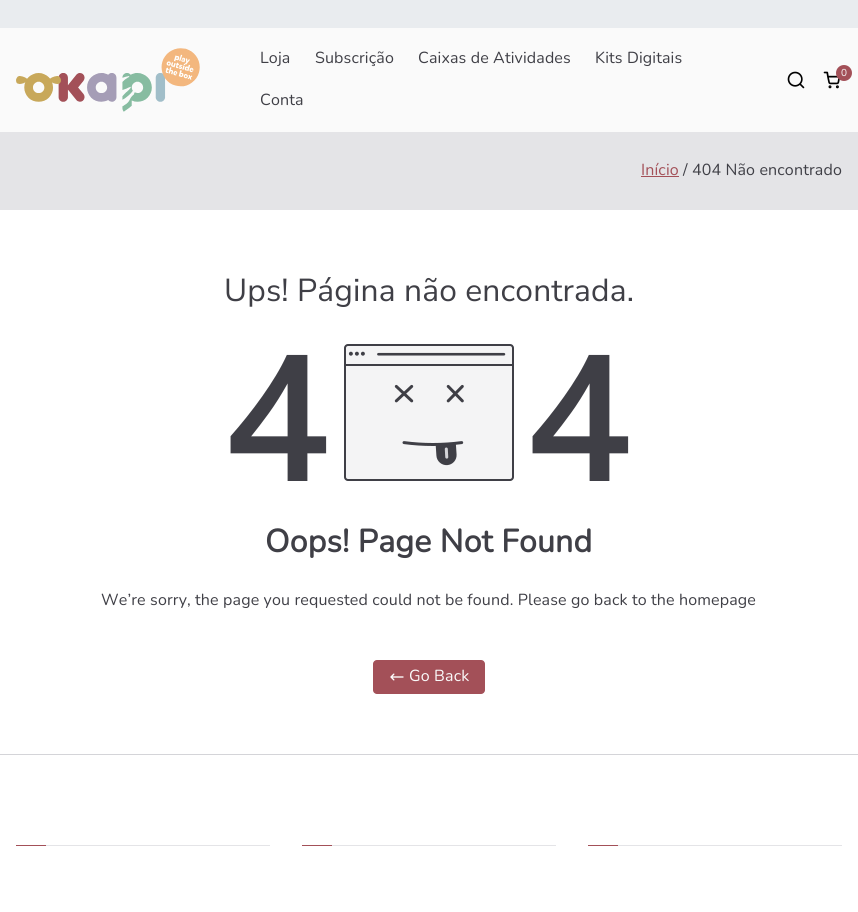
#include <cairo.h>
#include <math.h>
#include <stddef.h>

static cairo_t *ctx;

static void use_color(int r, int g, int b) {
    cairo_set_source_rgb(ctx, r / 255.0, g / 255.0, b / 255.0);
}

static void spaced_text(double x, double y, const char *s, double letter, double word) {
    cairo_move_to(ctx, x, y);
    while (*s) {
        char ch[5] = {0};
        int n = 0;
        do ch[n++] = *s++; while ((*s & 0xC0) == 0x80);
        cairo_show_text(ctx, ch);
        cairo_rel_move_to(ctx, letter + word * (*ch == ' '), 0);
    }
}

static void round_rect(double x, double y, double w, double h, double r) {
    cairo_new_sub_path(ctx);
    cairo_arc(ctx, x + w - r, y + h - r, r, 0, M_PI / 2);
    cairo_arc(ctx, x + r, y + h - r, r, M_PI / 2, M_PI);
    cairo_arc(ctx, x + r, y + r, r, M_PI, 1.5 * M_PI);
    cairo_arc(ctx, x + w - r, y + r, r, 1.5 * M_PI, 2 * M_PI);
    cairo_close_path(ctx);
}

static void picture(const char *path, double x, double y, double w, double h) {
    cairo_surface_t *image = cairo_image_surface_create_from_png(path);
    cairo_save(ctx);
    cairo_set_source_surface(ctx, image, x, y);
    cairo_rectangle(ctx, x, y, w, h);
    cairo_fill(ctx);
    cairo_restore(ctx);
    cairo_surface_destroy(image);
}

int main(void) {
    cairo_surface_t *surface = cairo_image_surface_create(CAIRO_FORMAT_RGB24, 858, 912);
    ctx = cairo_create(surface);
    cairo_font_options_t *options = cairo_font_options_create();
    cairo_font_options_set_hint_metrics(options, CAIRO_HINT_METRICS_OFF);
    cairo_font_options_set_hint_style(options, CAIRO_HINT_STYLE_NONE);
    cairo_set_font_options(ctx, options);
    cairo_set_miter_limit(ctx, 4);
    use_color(250, 250, 250);
    cairo_paint(ctx);
    use_color(233, 236, 239);
    cairo_rectangle(ctx, 0, 0, 858, 28);
    cairo_fill(ctx);
    picture("img1.png", 16, 48, 184, 64);
    cairo_select_font_face(ctx, "Nunito ExtraLight", CAIRO_FONT_SLANT_NORMAL, CAIRO_FONT_WEIGHT_NORMAL);
    cairo_set_font_size(ctx, 16);
    use_color(63, 63, 70);
    spaced_text(260, 63, "Loja", 0.15, 0);
    spaced_text(315, 63, "Subscrição", 0.15, 0);
    spaced_text(418, 63, "Caixas de Atividades", 0.15, 0);
    spaced_text(595, 63, "Kits Digitais", 0.15, 0);
    spaced_text(260, 105, "Conta", 0.15, 0);
    picture("img2.png", 787, 71, 18, 18);
    picture("img3.png", 823, 71, 17, 18);
    use_color(163, 80, 88);
    cairo_arc(ctx, 844, 73, 8, 0, 2 * M_PI);
    cairo_fill(ctx);
    cairo_set_font_size(ctx, 10);
    use_color(250, 250, 250);
    spaced_text(841, 76, "0", 0.15, 0);
    use_color(228, 228, 231);
    cairo_rectangle(ctx, 0, 132, 858, 78);
    cairo_fill(ctx);
    cairo_set_font_size(ctx, 16);
    use_color(163, 80, 88);
    spaced_text(641, 175, "Início", 0.15, 0);
    cairo_rectangle(ctx, 641, 176, 38, 1);
    cairo_fill(ctx);
    use_color(63, 63, 70);
    spaced_text(683, 175, "/ 404 Não encontrado", 0.15, 0);
    use_color(255, 255, 255);
    cairo_rectangle(ctx, 0, 210, 858, 544);
    cairo_fill(ctx);
    cairo_select_font_face(ctx, "Nunito Sans", CAIRO_FONT_SLANT_NORMAL, CAIRO_FONT_WEIGHT_NORMAL);
    cairo_set_font_size(ctx, 31.75);
    use_color(63, 63, 70);
    spaced_text(224, 301, "Ups! Página não encontrada.", 0.15, 0);
    picture("img4.png", 230, 344, 399, 137);
    cairo_select_font_face(ctx, "Nunito", CAIRO_FONT_SLANT_NORMAL, CAIRO_FONT_WEIGHT_BOLD);
    cairo_set_font_size(ctx, 32);
    spaced_text(265, 552, "Oops! Page Not Found", 0.15, 0);
    cairo_select_font_face(ctx, "Nunito ExtraLight", CAIRO_FONT_SLANT_NORMAL, CAIRO_FONT_WEIGHT_NORMAL);
    cairo_set_font_size(ctx, 16);
    spaced_text(101, 605, "We’re sorry, the page you requested could not be found. Please go back to the homepage", 0.15, 0);
    use_color(163, 80, 88);
    round_rect(373, 660, 112, 34, 4);
    cairo_fill(ctx);
    picture("img5.png", 390, 673, 14, 8);
    use_color(250, 250, 250);
    spaced_text(409, 681, "Go Back", 0.15, 0);
    use_color(255, 255, 255);
    cairo_rectangle(ctx, 0, 755, 858, 157);
    cairo_fill(ctx);
    use_color(212, 212, 216);
    cairo_rectangle(ctx, 0, 754, 858, 1);
    cairo_fill(ctx);
    use_color(228, 228, 231);
    cairo_rectangle(ctx, 46, 845, 224, 1);
    cairo_fill(ctx);
    use_color(163, 80, 88);
    cairo_rectangle(ctx, 16, 845, 30, 1);
    cairo_fill(ctx);
    use_color(228, 228, 231);
    cairo_rectangle(ctx, 332, 845, 224, 1);
    cairo_fill(ctx);
    use_color(163, 80, 88);
    cairo_rectangle(ctx, 302, 845, 30, 1);
    cairo_fill(ctx);
    use_color(228, 228, 231);
    cairo_rectangle(ctx, 618, 845, 224, 1);
    cairo_fill(ctx);
    use_color(163, 80, 88);
    cairo_rectangle(ctx, 588, 845, 30, 1);
    cairo_fill(ctx);
    cairo_surface_write_to_png(surface, "result.png");
    cairo_font_options_destroy(options);
    cairo_destroy(ctx);
    cairo_surface_destroy(surface);
    return 0;
}
